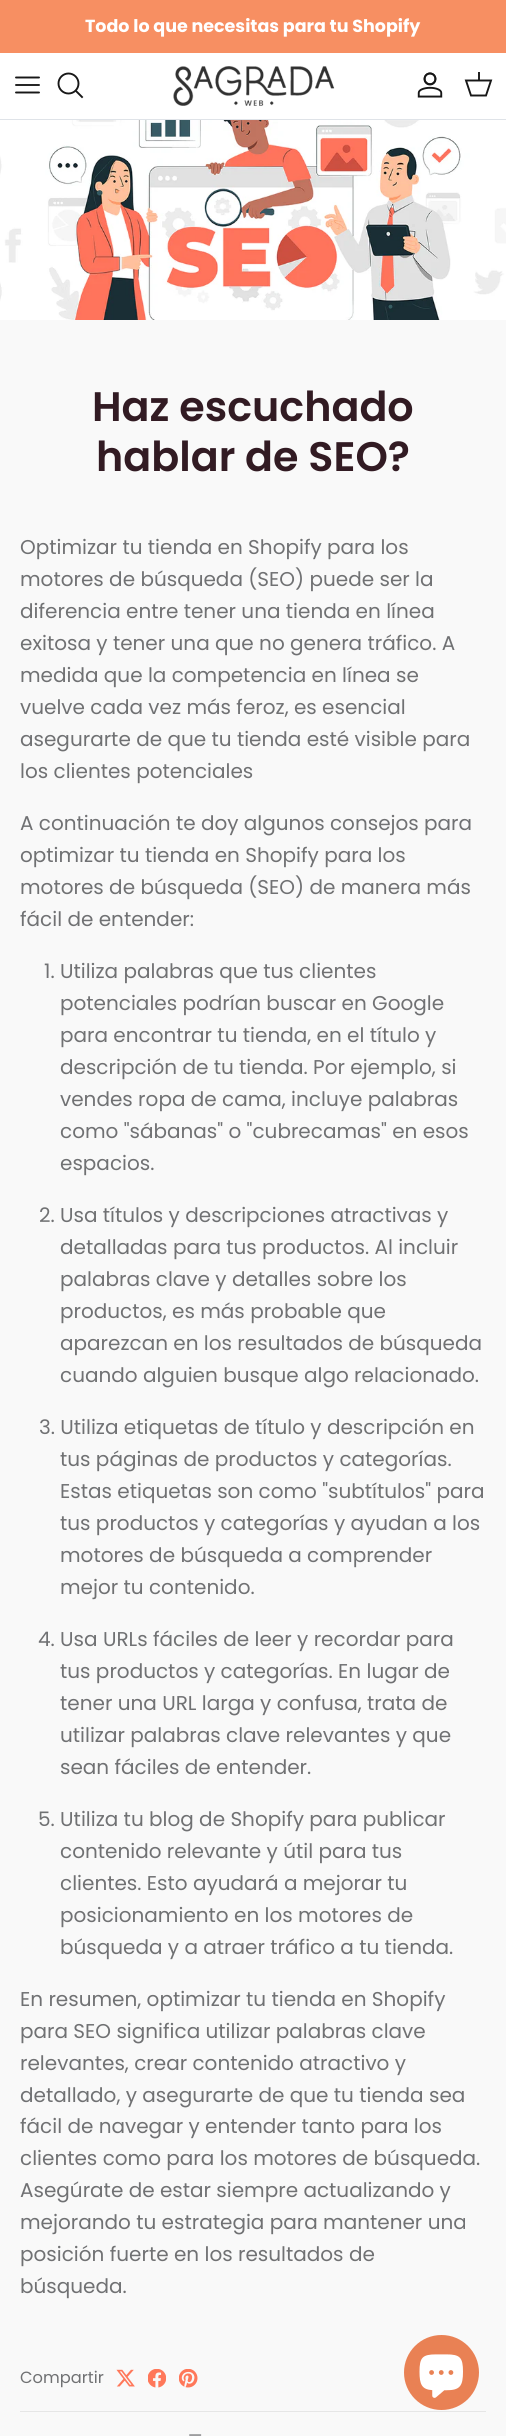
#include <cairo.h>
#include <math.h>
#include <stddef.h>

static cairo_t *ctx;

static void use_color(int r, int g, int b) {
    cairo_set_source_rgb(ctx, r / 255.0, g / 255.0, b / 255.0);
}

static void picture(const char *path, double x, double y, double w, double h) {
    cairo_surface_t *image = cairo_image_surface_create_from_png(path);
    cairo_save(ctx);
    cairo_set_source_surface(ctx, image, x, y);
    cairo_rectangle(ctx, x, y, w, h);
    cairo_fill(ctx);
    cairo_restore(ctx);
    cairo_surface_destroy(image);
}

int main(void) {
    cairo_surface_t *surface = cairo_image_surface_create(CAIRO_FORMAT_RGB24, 506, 2436);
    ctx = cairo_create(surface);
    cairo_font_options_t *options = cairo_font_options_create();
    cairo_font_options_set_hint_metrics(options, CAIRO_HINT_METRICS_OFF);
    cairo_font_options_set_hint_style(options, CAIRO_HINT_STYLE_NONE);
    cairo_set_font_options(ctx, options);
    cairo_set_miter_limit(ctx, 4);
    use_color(249, 249, 249);
    cairo_paint(ctx);
    use_color(247, 143, 98);
    cairo_rectangle(ctx, 0, 0, 506, 53);
    cairo_fill(ctx);
    cairo_select_font_face(ctx, "Poppins", CAIRO_FONT_SLANT_NORMAL, CAIRO_FONT_WEIGHT_BOLD);
    cairo_set_font_size(ctx, 17.5);
    use_color(255, 255, 255);
    cairo_move_to(ctx, 85, 32);
    cairo_show_text(ctx, "Todo lo que necesitas para tu Shopify");
    cairo_rectangle(ctx, 0, 53, 506, 66);
    cairo_fill(ctx);
    use_color(223, 227, 232);
    cairo_rectangle(ctx, 0, 119, 506, 1);
    cairo_fill(ctx);
    cairo_new_path(ctx);
    cairo_move_to(ctx, 16, 85);
    cairo_line_to(ctx, 39, 85);
    cairo_move_to(ctx, 16, 77.5);
    cairo_line_to(ctx, 39, 77.5);
    cairo_move_to(ctx, 16, 92.5);
    cairo_line_to(ctx, 39, 92.5);
    use_color(23, 23, 23);
    cairo_set_line_width(ctx, 1.9);
    cairo_set_line_cap(ctx, CAIRO_LINE_CAP_ROUND);
    cairo_set_line_join(ctx, CAIRO_LINE_JOIN_ROUND);
    cairo_stroke(ctx);
    cairo_arc(ctx, 68.5, 83.5, 10, 0, 2 * M_PI);
    cairo_set_line_cap(ctx, CAIRO_LINE_CAP_BUTT);
    cairo_set_line_join(ctx, CAIRO_LINE_JOIN_MITER);
    cairo_stroke(ctx);
    cairo_new_path(ctx);
    cairo_move_to(ctx, 76, 91);
    cairo_line_to(ctx, 82, 97);
    cairo_set_line_cap(ctx, CAIRO_LINE_CAP_SQUARE);
    cairo_stroke(ctx);
    picture("img1.png", 173, 66, 162, 40);
    picture("img2.png", 417, 72, 26, 26);
    cairo_new_path(ctx);
    cairo_move_to(ctx, 466, 80.5);
    cairo_line_to(ctx, 491, 80.5);
    cairo_line_to(ctx, 486, 95.5);
    cairo_line_to(ctx, 471, 95.5);
    cairo_close_path(ctx);
    cairo_set_line_cap(ctx, CAIRO_LINE_CAP_BUTT);
    cairo_stroke(ctx);
    cairo_set_source_rgba(ctx, 0.09, 0.09, 0.09, 0.95);
    cairo_rectangle(ctx, 478, 72, 2, 9);
    cairo_fill(ctx);
    picture("img3.png", 0, 120, 506, 200);
    cairo_select_font_face(ctx, "Poppins SemiBold", CAIRO_FONT_SLANT_NORMAL, CAIRO_FONT_WEIGHT_NORMAL);
    cairo_set_font_size(ctx, 41.25);
    use_color(50, 27, 35);
    cairo_move_to(ctx, 92, 421);
    cairo_show_text(ctx, "Haz escuchado");
    cairo_move_to(ctx, 96, 471);
    cairo_show_text(ctx, "hablar de SEO?");
    cairo_select_font_face(ctx, "Poppins", CAIRO_FONT_SLANT_NORMAL, CAIRO_FONT_WEIGHT_NORMAL);
    cairo_set_font_size(ctx, 20);
    use_color(112, 113, 115);
    cairo_move_to(ctx, 20, 554);
    cairo_show_text(ctx, "Optimizar tu tienda en Shopify para los");
    cairo_move_to(ctx, 20, 586);
    cairo_show_text(ctx, "motores de búsqueda (SEO) puede ser la");
    cairo_move_to(ctx, 20, 618);
    cairo_show_text(ctx, "diferencia entre tener una tienda en línea");
    cairo_move_to(ctx, 20, 650);
    cairo_show_text(ctx, "exitosa y tener una que no genera tráfico. A");
    cairo_move_to(ctx, 20, 682);
    cairo_show_text(ctx, "medida que la competencia en línea se");
    cairo_move_to(ctx, 20, 714);
    cairo_show_text(ctx, "vuelve cada vez más feroz, es esencial");
    cairo_move_to(ctx, 20, 746);
    cairo_show_text(ctx, "asegurarte de que tu tienda esté visible para");
    cairo_move_to(ctx, 20, 778);
    cairo_show_text(ctx, "los clientes potenciales");
    cairo_move_to(ctx, 20, 830);
    cairo_show_text(ctx, "A continuación te doy algunos consejos para");
    cairo_move_to(ctx, 20, 862);
    cairo_show_text(ctx, "optimizar tu tienda en Shopify para los");
    cairo_move_to(ctx, 20, 894);
    cairo_show_text(ctx, "motores de búsqueda (SEO) de manera más");
    cairo_move_to(ctx, 20, 926);
    cairo_show_text(ctx, "fácil de entender:");
    cairo_move_to(ctx, 44, 978);
    cairo_show_text(ctx, "1. Utiliza palabras que tus clientes");
    cairo_move_to(ctx, 60, 1010);
    cairo_show_text(ctx, "potenciales podrían buscar en Google");
    cairo_move_to(ctx, 60, 1042);
    cairo_show_text(ctx, "para encontrar tu tienda, en el título y");
    cairo_move_to(ctx, 60, 1074);
    cairo_show_text(ctx, "descripción de tu tienda. Por ejemplo, si");
    cairo_move_to(ctx, 60, 1106);
    cairo_show_text(ctx, "vendes ropa de cama, incluye palabras");
    cairo_move_to(ctx, 60, 1138);
    cairo_show_text(ctx, "como \"sábanas\" o \"cubrecamas\" en esos");
    cairo_move_to(ctx, 60, 1170);
    cairo_show_text(ctx, "espacios.");
    cairo_move_to(ctx, 39, 1222);
    cairo_show_text(ctx, "2. Usa títulos y descripciones atractivas y");
    cairo_move_to(ctx, 60, 1254);
    cairo_show_text(ctx, "detalladas para tus productos. Al incluir");
    cairo_move_to(ctx, 60, 1286);
    cairo_show_text(ctx, "palabras clave y detalles sobre los");
    cairo_move_to(ctx, 60, 1318);
    cairo_show_text(ctx, "productos, es más probable que");
    cairo_move_to(ctx, 60, 1350);
    cairo_show_text(ctx, "aparezcan en los resultados de búsqueda");
    cairo_move_to(ctx, 60, 1382);
    cairo_show_text(ctx, "cuando alguien busque algo relacionado.");
    cairo_move_to(ctx, 39, 1434);
    cairo_show_text(ctx, "3. Utiliza etiquetas de título y descripción en");
    cairo_move_to(ctx, 60, 1466);
    cairo_show_text(ctx, "tus páginas de productos y categorías.");
    cairo_move_to(ctx, 60, 1498);
    cairo_show_text(ctx, "Estas etiquetas son como \"subtítulos\" para");
    cairo_move_to(ctx, 60, 1530);
    cairo_show_text(ctx, "tus productos y categorías y ayudan a los");
    cairo_move_to(ctx, 60, 1562);
    cairo_show_text(ctx, "motores de búsqueda a comprender");
    cairo_move_to(ctx, 60, 1594);
    cairo_show_text(ctx, "mejor tu contenido.");
    cairo_move_to(ctx, 38, 1646);
    cairo_show_text(ctx, "4. Usa URLs fáciles de leer y recordar para");
    cairo_move_to(ctx, 60, 1678);
    cairo_show_text(ctx, "tus productos y categorías. En lugar de");
    cairo_move_to(ctx, 60, 1710);
    cairo_show_text(ctx, "tener una URL larga y confusa, trata de");
    cairo_move_to(ctx, 60, 1742);
    cairo_show_text(ctx, "utilizar palabras clave relevantes y que");
    cairo_move_to(ctx, 60, 1774);
    cairo_show_text(ctx, "sean fáciles de entender.");
    cairo_move_to(ctx, 38, 1826);
    cairo_show_text(ctx, "5. Utiliza tu blog de Shopify para publicar");
    cairo_move_to(ctx, 60, 1858);
    cairo_show_text(ctx, "contenido relevante y útil para tus");
    cairo_move_to(ctx, 60, 1890);
    cairo_show_text(ctx, "clientes. Esto ayudará a mejorar tu");
    cairo_move_to(ctx, 60, 1922);
    cairo_show_text(ctx, "posicionamiento en los motores de");
    cairo_move_to(ctx, 60, 1954);
    cairo_show_text(ctx, "búsqueda y a atraer tráfico a tu tienda.");
    cairo_move_to(ctx, 20, 2006);
    cairo_show_text(ctx, "En resumen, optimizar tu tienda en Shopify");
    cairo_move_to(ctx, 20, 2038);
    cairo_show_text(ctx, "para SEO significa utilizar palabras clave");
    cairo_move_to(ctx, 20, 2070);
    cairo_show_text(ctx, "relevantes, crear contenido atractivo y");
    cairo_move_to(ctx, 20, 2102);
    cairo_show_text(ctx, "detallado, y asegurarte de que tu tienda sea");
    cairo_move_to(ctx, 20, 2133);
    cairo_show_text(ctx, "fácil de navegar y entender tanto para los");
    cairo_move_to(ctx, 20, 2165);
    cairo_show_text(ctx, "clientes como para los motores de búsqueda.");
    cairo_move_to(ctx, 20, 2197);
    cairo_show_text(ctx, "Asegúrate de estar siempre actualizando y");
    cairo_move_to(ctx, 20, 2229);
    cairo_show_text(ctx, "mejorando tu estrategia para mantener una");
    cairo_move_to(ctx, 20, 2261);
    cairo_show_text(ctx, "posición fuerte en los resultados de");
    cairo_move_to(ctx, 20, 2293);
    cairo_show_text(ctx, "búsqueda.");
    cairo_set_font_size(ctx, 16.25);
    cairo_move_to(ctx, 20, 2383);
    cairo_show_text(ctx, "Compartir");
    picture("img4.png", 116, 2369, 19, 18);
    picture("img5.png", 148, 2369, 18, 19);
    picture("img6.png", 179, 2369, 19, 19);
    use_color(230, 230, 230);
    cairo_rectangle(ctx, 20, 2411, 466, 1);
    cairo_fill(ctx);
    use_color(112, 113, 115);
    cairo_move_to(ctx, 188, 2441);
    cairo_show_text(ctx, "—");
    use_color(233, 129, 84);
    cairo_new_path(ctx);
    cairo_arc(ctx, 441.5, 2372.5, 37.5, 0, 2 * M_PI);
    cairo_fill(ctx);
    picture("img7.png", 419, 2354, 44, 44);
    cairo_surface_write_to_png(surface, "result.png");
    cairo_font_options_destroy(options);
    cairo_destroy(ctx);
    cairo_surface_destroy(surface);
    return 0;
}
